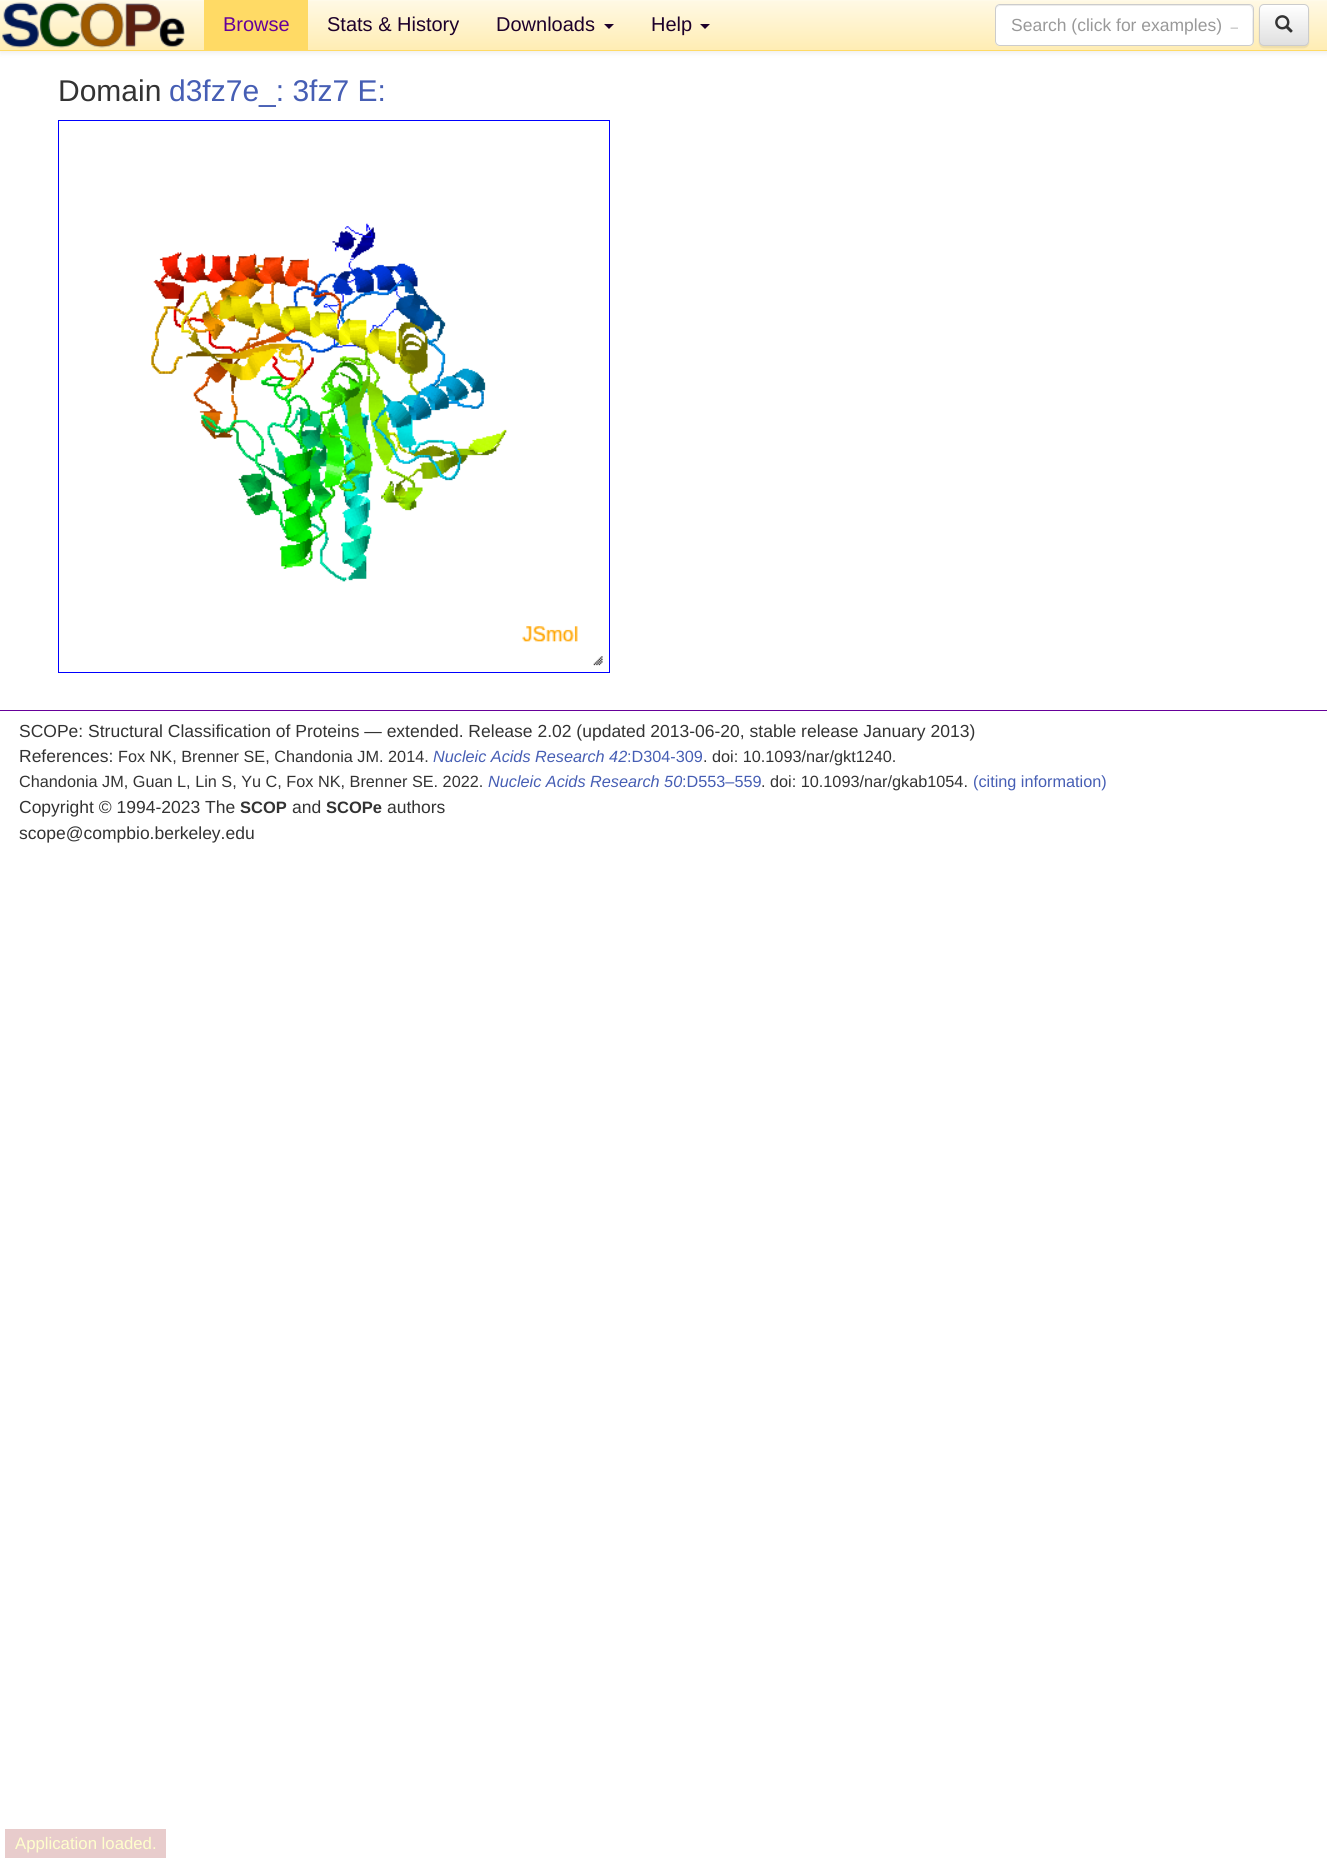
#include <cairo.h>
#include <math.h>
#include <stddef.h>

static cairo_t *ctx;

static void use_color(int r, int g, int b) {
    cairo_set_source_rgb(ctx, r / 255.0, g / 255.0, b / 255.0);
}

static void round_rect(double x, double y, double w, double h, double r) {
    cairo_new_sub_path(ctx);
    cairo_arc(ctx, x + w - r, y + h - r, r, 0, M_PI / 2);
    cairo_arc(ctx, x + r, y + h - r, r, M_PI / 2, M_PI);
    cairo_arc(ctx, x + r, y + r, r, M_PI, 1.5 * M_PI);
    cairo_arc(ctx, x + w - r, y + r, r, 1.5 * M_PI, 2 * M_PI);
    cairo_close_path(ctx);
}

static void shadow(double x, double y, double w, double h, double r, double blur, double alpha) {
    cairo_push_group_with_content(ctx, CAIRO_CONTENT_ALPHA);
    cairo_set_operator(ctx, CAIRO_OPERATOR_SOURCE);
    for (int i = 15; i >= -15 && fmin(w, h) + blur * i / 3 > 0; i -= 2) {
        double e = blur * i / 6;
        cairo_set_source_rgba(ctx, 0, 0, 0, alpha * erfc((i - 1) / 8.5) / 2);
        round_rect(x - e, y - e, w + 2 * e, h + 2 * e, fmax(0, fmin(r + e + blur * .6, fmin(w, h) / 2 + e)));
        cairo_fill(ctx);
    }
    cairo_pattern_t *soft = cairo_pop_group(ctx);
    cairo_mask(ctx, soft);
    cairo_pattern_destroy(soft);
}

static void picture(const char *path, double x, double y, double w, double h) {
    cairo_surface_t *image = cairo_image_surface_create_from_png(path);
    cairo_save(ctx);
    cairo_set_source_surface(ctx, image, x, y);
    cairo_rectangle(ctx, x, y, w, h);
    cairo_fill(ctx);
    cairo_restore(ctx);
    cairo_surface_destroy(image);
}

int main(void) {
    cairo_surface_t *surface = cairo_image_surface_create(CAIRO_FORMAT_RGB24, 1327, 1862);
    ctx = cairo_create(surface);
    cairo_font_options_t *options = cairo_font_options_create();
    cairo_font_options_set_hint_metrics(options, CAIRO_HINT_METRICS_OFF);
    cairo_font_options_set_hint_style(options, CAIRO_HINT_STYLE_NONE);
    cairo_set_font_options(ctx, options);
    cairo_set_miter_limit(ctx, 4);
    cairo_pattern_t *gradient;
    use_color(255, 255, 255);
    cairo_paint(ctx);
    use_color(0, 0, 0);
    shadow(0, 1, 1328, 52, 0, 3, 0.07);
    gradient = cairo_pattern_create_linear(664, 0, 664, 50);
    cairo_pattern_add_color_stop_rgba(gradient, 0, 1, 0.976, 0.902, 1);
    cairo_pattern_add_color_stop_rgba(gradient, 1, 1, 0.929, 0.702, 1);
    cairo_set_source(ctx, gradient);
    cairo_pattern_destroy(gradient);
    cairo_rectangle(ctx, 0, 1, 1327, 49);
    cairo_fill(ctx);
    use_color(255, 250, 233);
    cairo_rectangle(ctx, 0, 0, 1327, 1);
    cairo_fill(ctx);
    use_color(255, 218, 101);
    cairo_rectangle(ctx, 0, 50, 1327, 1);
    cairo_fill(ctx);
    picture("img1.png", 2, 2, 183, 46);
    cairo_rectangle(ctx, 204, 0, 104, 50);
    cairo_fill(ctx);
    cairo_select_font_face(ctx, "Liberation Sans", CAIRO_FONT_SLANT_NORMAL, CAIRO_FONT_WEIGHT_NORMAL);
    cairo_set_font_size(ctx, 20);
    use_color(102, 0, 153);
    cairo_move_to(ctx, 223, 31);
    cairo_show_text(ctx, "Browse");
    use_color(29, 0, 43);
    cairo_move_to(ctx, 327, 31);
    cairo_show_text(ctx, "Stats & History");
    cairo_move_to(ctx, 496, 31);
    cairo_show_text(ctx, "Downloads");
    cairo_new_path(ctx);
    cairo_move_to(ctx, 604, 24);
    cairo_line_to(ctx, 614, 24);
    cairo_line_to(ctx, 609, 29);
    cairo_close_path(ctx);
    cairo_fill(ctx);
    cairo_move_to(ctx, 651, 31);
    cairo_show_text(ctx, "Help");
    cairo_new_path(ctx);
    cairo_move_to(ctx, 700, 24);
    cairo_line_to(ctx, 710, 24);
    cairo_line_to(ctx, 705, 29);
    cairo_close_path(ctx);
    cairo_fill(ctx);
    use_color(255, 255, 255);
    round_rect(995, 4, 259, 42, 5);
    cairo_fill(ctx);
    use_color(236, 236, 236);
    cairo_new_path(ctx);
    cairo_move_to(ctx, 1000, 6);
    cairo_line_to(ctx, 1249, 6);
    cairo_curve_to(ctx, 1254, 6, 1252, 19, 1252, 21);
    cairo_line_to(ctx, 1252, 44);
    cairo_curve_to(ctx, 1253, 43, 1253, 42, 1253, 41);
    cairo_line_to(ctx, 1253, 9);
    cairo_curve_to(ctx, 1253, 7, 1251, 5, 1249, 5);
    cairo_line_to(ctx, 1000, 5);
    cairo_curve_to(ctx, 998, 5, 996, 7, 996, 9);
    cairo_line_to(ctx, 996, 10);
    cairo_curve_to(ctx, 996, 8, 998, 6, 1000, 6);
    cairo_close_path(ctx);
    cairo_fill(ctx);
    round_rect(995.5, 4.5, 258, 41, 4.5);
    use_color(204, 204, 204);
    cairo_set_line_width(ctx, 1);
    cairo_stroke(ctx);
    cairo_save(ctx);
    cairo_rectangle(ctx, 1011, 15, 227, 20);
    cairo_clip(ctx);
    cairo_set_font_size(ctx, 17.5);
    use_color(153, 153, 153);
    cairo_move_to(ctx, 1011, 31);
    cairo_show_text(ctx, "Search (click for examples) →");
    cairo_restore(ctx);
    use_color(0, 0, 0);
    shadow(1259, 5, 50, 43, 5, 0.5, 0.07);
    cairo_save(ctx);
    round_rect(1259, 4, 50, 42, 5);
    cairo_clip(ctx);
    gradient = cairo_pattern_create_linear(1284, 5, 1284, 45);
    cairo_pattern_add_color_stop_rgba(gradient, 0, 1, 1, 1, 1);
    cairo_pattern_add_color_stop_rgba(gradient, 1, 0.878, 0.878, 0.878, 1);
    cairo_set_source(ctx, gradient);
    cairo_pattern_destroy(gradient);
    cairo_rectangle(ctx, 1259, 5, 50, 40);
    cairo_fill(ctx);
    cairo_restore(ctx);
    round_rect(1259.5, 4.5, 49, 41, 4.5);
    use_color(204, 204, 204);
    cairo_stroke(ctx);
    picture("img2.png", 1275, 15, 18, 18);
    cairo_set_font_size(ctx, 30);
    use_color(51, 51, 51);
    cairo_move_to(ctx, 58, 101);
    cairo_show_text(ctx, "Domain");
    use_color(70, 94, 180);
    cairo_move_to(ctx, 169, 101);
    cairo_show_text(ctx, "d3fz7e_: 3fz7 E:");
    cairo_rectangle(ctx, 58.5, 120.5, 551, 552);
    use_color(0, 0, 255);
    cairo_stroke(ctx);
    picture("img3.png", 151, 223, 427, 419);
    picture("img4.png", 593, 656, 10, 10);
    use_color(102, 0, 153);
    cairo_rectangle(ctx, 0, 710, 1327, 1);
    cairo_fill(ctx);
    cairo_set_font_size(ctx, 17.5);
    use_color(51, 51, 51);
    cairo_move_to(ctx, 19, 737);
    cairo_show_text(ctx, "SCOPe: Structural Classification of Proteins — extended. Release 2.02 (updated 2013-06-20, stable release January 2013)");
    cairo_move_to(ctx, 19, 762);
    cairo_show_text(ctx, "References:");
    cairo_set_font_size(ctx, 16.25);
    cairo_move_to(ctx, 118, 762);
    cairo_show_text(ctx, "Fox NK, Brenner SE, Chandonia JM. 2014.");
    cairo_select_font_face(ctx, "Liberation Sans", CAIRO_FONT_SLANT_ITALIC, CAIRO_FONT_WEIGHT_NORMAL);
    use_color(70, 94, 180);
    cairo_move_to(ctx, 433, 762);
    cairo_show_text(ctx, "Nucleic Acids Research 42");
    cairo_select_font_face(ctx, "Liberation Sans", CAIRO_FONT_SLANT_NORMAL, CAIRO_FONT_WEIGHT_NORMAL);
    cairo_move_to(ctx, 627, 762);
    cairo_show_text(ctx, ":D304-309");
    use_color(51, 51, 51);
    cairo_move_to(ctx, 703, 762);
    cairo_show_text(ctx, ". doi: 10.1093/nar/gkt1240.");
    cairo_move_to(ctx, 19, 787);
    cairo_show_text(ctx, "Chandonia JM, Guan L, Lin S, Yu C, Fox NK, Brenner SE. 2022.");
    cairo_select_font_face(ctx, "Liberation Sans", CAIRO_FONT_SLANT_ITALIC, CAIRO_FONT_WEIGHT_NORMAL);
    use_color(70, 94, 180);
    cairo_move_to(ctx, 488, 787);
    cairo_show_text(ctx, "Nucleic Acids Research 50");
    cairo_select_font_face(ctx, "Liberation Sans", CAIRO_FONT_SLANT_NORMAL, CAIRO_FONT_WEIGHT_NORMAL);
    cairo_move_to(ctx, 682, 787);
    cairo_show_text(ctx, ":D553–559");
    use_color(51, 51, 51);
    cairo_move_to(ctx, 761, 787);
    cairo_show_text(ctx, ". doi: 10.1093/nar/gkab1054.");
    use_color(70, 94, 180);
    cairo_move_to(ctx, 973, 787);
    cairo_show_text(ctx, "(citing information)");
    cairo_set_font_size(ctx, 17.5);
    use_color(51, 51, 51);
    cairo_move_to(ctx, 19, 813);
    cairo_show_text(ctx, "Copyright © 1994-2023 The");
    cairo_select_font_face(ctx, "Liberation Sans", CAIRO_FONT_SLANT_NORMAL, CAIRO_FONT_WEIGHT_BOLD);
    cairo_set_font_size(ctx, 16.5);
    cairo_move_to(ctx, 240, 813);
    cairo_show_text(ctx, "SCOP");
    cairo_select_font_face(ctx, "Liberation Sans", CAIRO_FONT_SLANT_NORMAL, CAIRO_FONT_WEIGHT_NORMAL);
    cairo_set_font_size(ctx, 17.5);
    cairo_move_to(ctx, 292, 813);
    cairo_show_text(ctx, "and");
    cairo_select_font_face(ctx, "Liberation Sans", CAIRO_FONT_SLANT_NORMAL, CAIRO_FONT_WEIGHT_BOLD);
    cairo_set_font_size(ctx, 16.5);
    cairo_move_to(ctx, 326, 813);
    cairo_show_text(ctx, "SCOPe");
    cairo_select_font_face(ctx, "Liberation Sans", CAIRO_FONT_SLANT_NORMAL, CAIRO_FONT_WEIGHT_NORMAL);
    cairo_set_font_size(ctx, 17.5);
    cairo_move_to(ctx, 387, 813);
    cairo_show_text(ctx, "authors");
    cairo_move_to(ctx, 19, 839);
    cairo_show_text(ctx, "scope@compbio.berkeley.edu");
    use_color(232, 204, 204);
    cairo_rectangle(ctx, 5, 1829, 161, 29);
    cairo_fill(ctx);
    cairo_set_font_size(ctx, 16.75);
    use_color(255, 255, 204);
    cairo_move_to(ctx, 15, 1849);
    cairo_show_text(ctx, "Application loaded.");
    cairo_surface_write_to_png(surface, "result.png");
    cairo_font_options_destroy(options);
    cairo_destroy(ctx);
    cairo_surface_destroy(surface);
    return 0;
}
